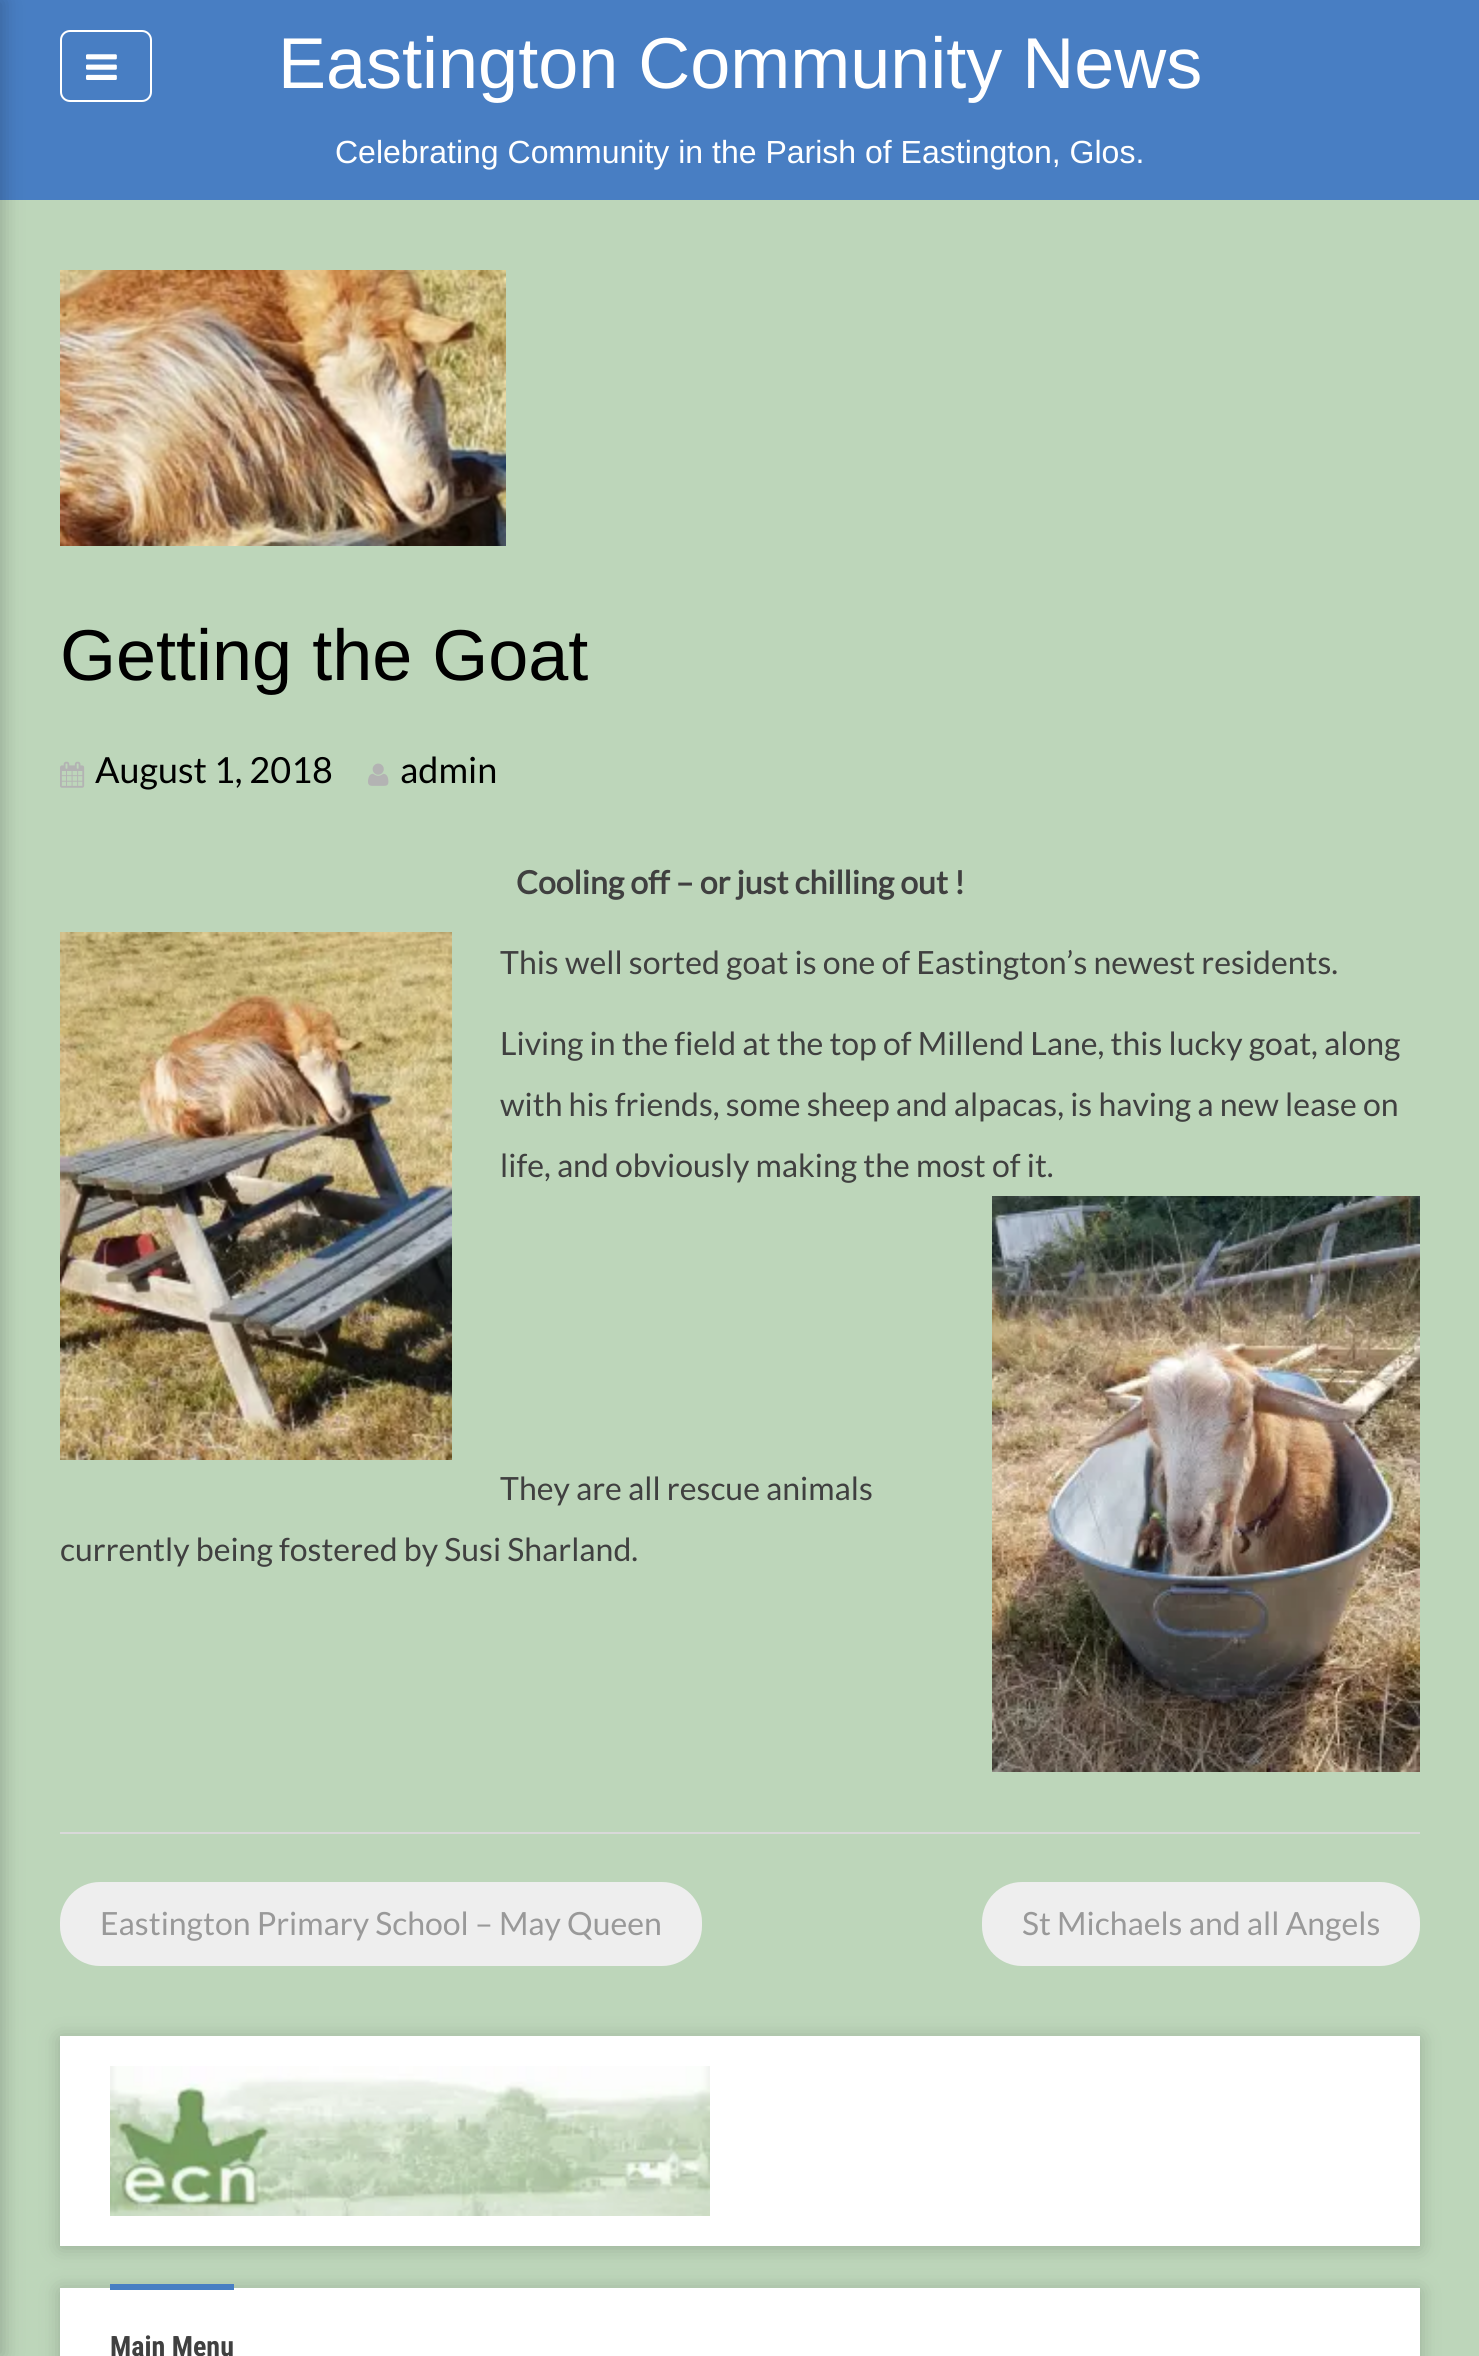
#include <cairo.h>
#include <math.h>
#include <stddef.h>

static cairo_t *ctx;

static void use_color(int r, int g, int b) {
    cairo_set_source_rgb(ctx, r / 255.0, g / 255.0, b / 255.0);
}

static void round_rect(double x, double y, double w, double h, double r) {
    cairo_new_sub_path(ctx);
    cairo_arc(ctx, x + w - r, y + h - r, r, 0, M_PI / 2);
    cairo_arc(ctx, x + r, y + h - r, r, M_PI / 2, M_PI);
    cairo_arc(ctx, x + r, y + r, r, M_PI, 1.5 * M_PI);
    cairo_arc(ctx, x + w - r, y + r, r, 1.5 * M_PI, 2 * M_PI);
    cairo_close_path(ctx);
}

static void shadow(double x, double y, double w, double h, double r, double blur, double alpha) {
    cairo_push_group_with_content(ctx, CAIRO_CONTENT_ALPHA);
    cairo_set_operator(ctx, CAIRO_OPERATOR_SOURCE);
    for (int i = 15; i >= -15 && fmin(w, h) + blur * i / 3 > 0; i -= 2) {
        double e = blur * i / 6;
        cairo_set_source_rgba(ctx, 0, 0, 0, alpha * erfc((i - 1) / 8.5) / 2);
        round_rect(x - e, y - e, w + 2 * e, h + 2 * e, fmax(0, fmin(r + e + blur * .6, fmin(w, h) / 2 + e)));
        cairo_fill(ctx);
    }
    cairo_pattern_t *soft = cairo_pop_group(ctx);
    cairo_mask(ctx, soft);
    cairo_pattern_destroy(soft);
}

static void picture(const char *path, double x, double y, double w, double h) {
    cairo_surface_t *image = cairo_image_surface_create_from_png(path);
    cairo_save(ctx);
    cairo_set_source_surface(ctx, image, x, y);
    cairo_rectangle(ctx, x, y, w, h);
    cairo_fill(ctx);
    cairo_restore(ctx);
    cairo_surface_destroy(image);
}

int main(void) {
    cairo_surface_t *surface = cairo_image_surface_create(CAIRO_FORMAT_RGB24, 1479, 2356);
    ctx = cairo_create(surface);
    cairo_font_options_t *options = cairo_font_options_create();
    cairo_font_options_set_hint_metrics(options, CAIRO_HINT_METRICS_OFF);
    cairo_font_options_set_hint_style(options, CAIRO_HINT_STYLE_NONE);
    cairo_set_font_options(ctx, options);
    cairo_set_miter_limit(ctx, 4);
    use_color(189, 214, 186);
    cairo_paint(ctx);
    use_color(72, 126, 195);
    cairo_rectangle(ctx, 0, 0, 1479, 200);
    cairo_fill(ctx);
    use_color(0, 0, 0);
    shadow(-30, 0, 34, 2356, 0, 10, 0.2);
    round_rect(61, 31, 90, 70, 9);
    use_color(255, 255, 255);
    cairo_stroke(ctx);
    picture("img1.png", 86, 54, 31, 26);
    cairo_select_font_face(ctx, "Liberation Sans", CAIRO_FONT_SLANT_NORMAL, CAIRO_FONT_WEIGHT_NORMAL);
    cairo_set_font_size(ctx, 72);
    cairo_move_to(ctx, 278, 88);
    cairo_show_text(ctx, "Eastington Community News");
    cairo_set_font_size(ctx, 32);
    cairo_move_to(ctx, 335, 163);
    cairo_show_text(ctx, "Celebrating Community in the Parish of Eastington, Glos.");
    use_color(217, 217, 217);
    cairo_rectangle(ctx, 60, 1832, 1360, 2);
    cairo_fill(ctx);
    picture("img2.png", 60, 270, 446, 276);
    cairo_set_font_size(ctx, 72);
    use_color(0, 0, 0);
    cairo_move_to(ctx, 60, 680);
    cairo_show_text(ctx, "Getting the Goat");
    picture("img3.png", 60, 761, 25, 27);
    cairo_select_font_face(ctx, "Lato", CAIRO_FONT_SLANT_NORMAL, CAIRO_FONT_WEIGHT_NORMAL);
    cairo_set_font_size(ctx, 36);
    cairo_move_to(ctx, 95, 783);
    cairo_show_text(ctx, "August 1, 2018");
    picture("img4.png", 368, 763, 21, 23);
    cairo_move_to(ctx, 400, 783);
    cairo_show_text(ctx, "admin");
    cairo_select_font_face(ctx, "Lato", CAIRO_FONT_SLANT_NORMAL, CAIRO_FONT_WEIGHT_BOLD);
    cairo_set_font_size(ctx, 32);
    use_color(64, 64, 64);
    cairo_move_to(ctx, 516, 894);
    cairo_show_text(ctx, "Cooling off – or just chilling out !");
    picture("img5.png", 60, 932, 392, 528);
    cairo_select_font_face(ctx, "Lato", CAIRO_FONT_SLANT_NORMAL, CAIRO_FONT_WEIGHT_NORMAL);
    cairo_move_to(ctx, 500, 974);
    cairo_show_text(ctx, "This well sorted goat is one of Eastington’s newest residents.");
    cairo_move_to(ctx, 500, 1055);
    cairo_show_text(ctx, "Living in the field at the top of Millend Lane, this lucky goat, along");
    cairo_move_to(ctx, 500, 1116);
    cairo_show_text(ctx, "with his friends, some sheep and alpacas, is having a new lease on");
    cairo_move_to(ctx, 500, 1177);
    cairo_show_text(ctx, "life, and obviously making the most of it.");
    picture("img6.png", 992, 1196, 428, 576);
    cairo_move_to(ctx, 500, 1500);
    cairo_show_text(ctx, "They are all rescue animals");
    cairo_move_to(ctx, 60, 1561);
    cairo_show_text(ctx, "currently being fostered by Susi Sharland.");
    use_color(238, 238, 238);
    round_rect(60, 1882, 642, 84, 40);
    cairo_fill(ctx);
    use_color(153, 153, 153);
    cairo_move_to(ctx, 100, 1935);
    cairo_show_text(ctx, "Eastington Primary School – May Queen");
    use_color(238, 238, 238);
    round_rect(982, 1882, 438, 84, 40);
    cairo_fill(ctx);
    use_color(153, 153, 153);
    cairo_move_to(ctx, 1022, 1935);
    cairo_show_text(ctx, "St Michaels and all Angels");
    use_color(0, 0, 0);
    shadow(60, 2038, 1360, 210, 0, 10, 0.2);
    use_color(255, 255, 255);
    cairo_rectangle(ctx, 60, 2036, 1360, 210);
    cairo_fill(ctx);
    picture("img7.png", 110, 2066, 600, 150);
    use_color(0, 0, 0);
    shadow(60, 2290, 1360, 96, 0, 10, 0.2);
    use_color(255, 255, 255);
    cairo_rectangle(ctx, 60, 2288, 1360, 68);
    cairo_fill(ctx);
    cairo_select_font_face(ctx, "Roboto Condensed", CAIRO_FONT_SLANT_NORMAL, CAIRO_FONT_WEIGHT_BOLD);
    cairo_set_font_size(ctx, 28);
    use_color(64, 64, 64);
    cairo_move_to(ctx, 110, 2356);
    cairo_show_text(ctx, "Main Menu");
    use_color(72, 126, 195);
    cairo_rectangle(ctx, 110, 2284, 124, 6);
    cairo_fill(ctx);
    cairo_surface_write_to_png(surface, "result.png");
    cairo_font_options_destroy(options);
    cairo_destroy(ctx);
    cairo_surface_destroy(surface);
    return 0;
}
